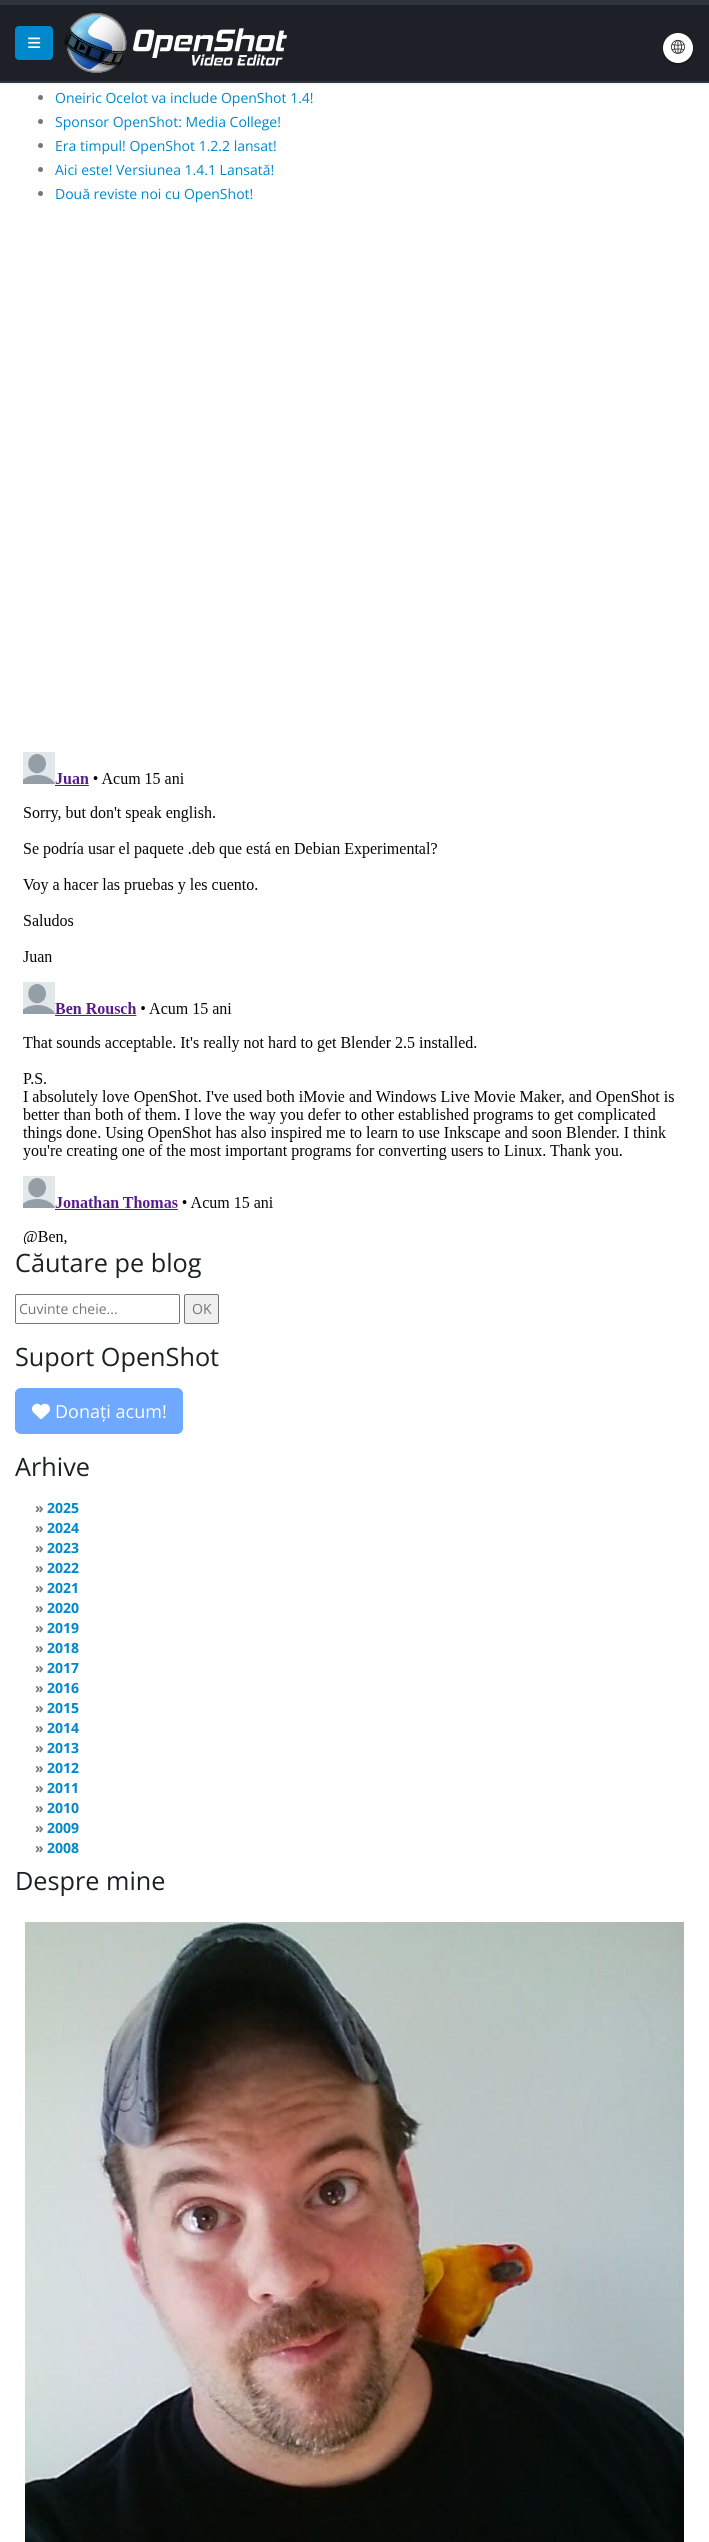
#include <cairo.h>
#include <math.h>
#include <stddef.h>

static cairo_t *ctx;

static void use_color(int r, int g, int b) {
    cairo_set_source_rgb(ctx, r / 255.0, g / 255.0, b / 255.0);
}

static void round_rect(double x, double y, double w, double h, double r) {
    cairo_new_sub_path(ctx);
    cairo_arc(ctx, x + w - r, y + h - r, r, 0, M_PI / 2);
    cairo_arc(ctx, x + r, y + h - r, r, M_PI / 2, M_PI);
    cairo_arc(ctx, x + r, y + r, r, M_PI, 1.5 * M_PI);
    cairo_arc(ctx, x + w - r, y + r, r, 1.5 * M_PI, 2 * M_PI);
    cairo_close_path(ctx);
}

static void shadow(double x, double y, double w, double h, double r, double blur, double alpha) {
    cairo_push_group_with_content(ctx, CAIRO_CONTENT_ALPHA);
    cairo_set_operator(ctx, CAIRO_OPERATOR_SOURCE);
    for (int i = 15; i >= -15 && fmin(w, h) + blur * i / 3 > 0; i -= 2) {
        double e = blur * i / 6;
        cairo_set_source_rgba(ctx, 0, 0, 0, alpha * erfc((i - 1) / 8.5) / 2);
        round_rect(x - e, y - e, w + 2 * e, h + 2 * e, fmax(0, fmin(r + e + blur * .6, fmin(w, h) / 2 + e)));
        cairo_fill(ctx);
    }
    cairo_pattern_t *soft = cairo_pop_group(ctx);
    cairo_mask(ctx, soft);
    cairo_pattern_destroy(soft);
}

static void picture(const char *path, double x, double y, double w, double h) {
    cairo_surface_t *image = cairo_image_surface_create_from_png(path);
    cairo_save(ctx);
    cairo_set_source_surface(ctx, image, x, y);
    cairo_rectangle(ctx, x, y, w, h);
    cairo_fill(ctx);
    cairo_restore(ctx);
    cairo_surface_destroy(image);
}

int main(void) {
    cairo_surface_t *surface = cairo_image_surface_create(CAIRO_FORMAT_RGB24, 709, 2542);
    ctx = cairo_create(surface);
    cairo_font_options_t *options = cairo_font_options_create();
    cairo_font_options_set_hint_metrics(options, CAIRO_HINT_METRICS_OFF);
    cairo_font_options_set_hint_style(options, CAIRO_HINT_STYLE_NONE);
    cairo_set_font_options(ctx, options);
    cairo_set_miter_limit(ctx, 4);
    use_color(255, 255, 255);
    cairo_paint(ctx);
    use_color(0, 0, 0);
    shadow(0, 0, 709, 83, 0, 1.5, 0.1);
    use_color(29, 33, 39);
    cairo_rectangle(ctx, 0, 5, 709, 76);
    cairo_fill(ctx);
    use_color(46, 53, 62);
    cairo_rectangle(ctx, 0, 0, 709, 5);
    cairo_fill(ctx);
    cairo_rectangle(ctx, 0, 81, 709, 2);
    cairo_fill(ctx);
    picture("img1.png", 64, 13, 223, 60);
    use_color(0, 136, 204);
    round_rect(15, 26, 38, 34, 4);
    cairo_fill(ctx);
    picture("img2.png", 28, 37, 13, 11);
    use_color(0, 0, 0);
    shadow(663, 35, 30, 30, 15, 1, 0.3);
    use_color(255, 255, 255);
    cairo_arc(ctx, 678, 48, 15, 0, 2 * M_PI);
    cairo_fill(ctx);
    picture("img3.png", 671, 39, 14, 15);
    use_color(119, 119, 119);
    cairo_arc(ctx, 40.5, 97.5, 2.5, 0, 2 * M_PI);
    cairo_fill(ctx);
    cairo_select_font_face(ctx, "Open Sans", CAIRO_FONT_SLANT_NORMAL, CAIRO_FONT_WEIGHT_NORMAL);
    cairo_set_font_size(ctx, 14);
    use_color(0, 136, 204);
    cairo_move_to(ctx, 55, 103);
    cairo_show_text(ctx, "Oneiric Ocelot va include OpenShot 1.4!");
    use_color(119, 119, 119);
    cairo_new_path(ctx);
    cairo_arc(ctx, 40.5, 121.5, 2.5, 0, 2 * M_PI);
    cairo_fill(ctx);
    use_color(0, 136, 204);
    cairo_move_to(ctx, 55, 127);
    cairo_show_text(ctx, "Sponsor OpenShot: Media College!");
    use_color(119, 119, 119);
    cairo_new_path(ctx);
    cairo_arc(ctx, 40.5, 145.5, 2.5, 0, 2 * M_PI);
    cairo_fill(ctx);
    use_color(0, 136, 204);
    cairo_move_to(ctx, 55, 151);
    cairo_show_text(ctx, "Era timpul! OpenShot 1.2.2 lansat!");
    use_color(119, 119, 119);
    cairo_new_path(ctx);
    cairo_arc(ctx, 40.5, 169.5, 2.5, 0, 2 * M_PI);
    cairo_fill(ctx);
    use_color(0, 136, 204);
    cairo_move_to(ctx, 55, 175);
    cairo_show_text(ctx, "Aici este! Versiunea 1.4.1 Lansată!");
    use_color(119, 119, 119);
    cairo_new_path(ctx);
    cairo_arc(ctx, 40.5, 193.5, 2.5, 0, 2 * M_PI);
    cairo_fill(ctx);
    use_color(0, 136, 204);
    cairo_move_to(ctx, 55, 199);
    cairo_show_text(ctx, "Două reviste noi cu OpenShot!");
    picture("img4.png", 23, 752, 651, 492);
    cairo_set_font_size(ctx, 25.25);
    use_color(29, 33, 39);
    cairo_move_to(ctx, 15, 1272);
    cairo_show_text(ctx, "Căutare pe blog");
    round_rect(15.5, 1294.5, 164, 29, 1.5);
    use_color(118, 118, 118);
    cairo_set_line_width(ctx, 1);
    cairo_stroke(ctx);
    cairo_set_font_size(ctx, 14);
    use_color(117, 117, 117);
    cairo_move_to(ctx, 19, 1314);
    cairo_show_text(ctx, "Cuvinte cheie...");
    use_color(239, 239, 239);
    round_rect(184.5, 1294.5, 34, 29, 1.5);
    cairo_fill_preserve(ctx);
    use_color(118, 118, 118);
    cairo_stroke(ctx);
    use_color(117, 117, 117);
    cairo_move_to(ctx, 192, 1314);
    cairo_show_text(ctx, "OK");
    cairo_set_font_size(ctx, 25.25);
    use_color(29, 33, 39);
    cairo_move_to(ctx, 15, 1366);
    cairo_show_text(ctx, "Suport OpenShot");
    use_color(110, 168, 255);
    round_rect(15.5, 1388.5, 167, 45, 5.5);
    cairo_fill_preserve(ctx);
    cairo_stroke(ctx);
    picture("img5.png", 32, 1403, 18, 17);
    cairo_set_font_size(ctx, 18);
    use_color(255, 255, 255);
    cairo_move_to(ctx, 55, 1418);
    cairo_show_text(ctx, "Donați acum!");
    cairo_set_font_size(ctx, 25.25);
    use_color(29, 33, 39);
    cairo_move_to(ctx, 15, 1476);
    cairo_show_text(ctx, "Arhive");
    cairo_select_font_face(ctx, "Open Sans", CAIRO_FONT_SLANT_NORMAL, CAIRO_FONT_WEIGHT_BOLD);
    cairo_set_font_size(ctx, 14);
    use_color(117, 117, 117);
    cairo_move_to(ctx, 35, 1513);
    cairo_show_text(ctx, "»");
    use_color(0, 136, 204);
    cairo_move_to(ctx, 47, 1513);
    cairo_show_text(ctx, "2025");
    use_color(117, 117, 117);
    cairo_move_to(ctx, 35, 1533);
    cairo_show_text(ctx, "»");
    use_color(0, 136, 204);
    cairo_move_to(ctx, 47, 1533);
    cairo_show_text(ctx, "2024");
    use_color(117, 117, 117);
    cairo_move_to(ctx, 35, 1553);
    cairo_show_text(ctx, "»");
    use_color(0, 136, 204);
    cairo_move_to(ctx, 47, 1553);
    cairo_show_text(ctx, "2023");
    use_color(117, 117, 117);
    cairo_move_to(ctx, 35, 1573);
    cairo_show_text(ctx, "»");
    use_color(0, 136, 204);
    cairo_move_to(ctx, 47, 1573);
    cairo_show_text(ctx, "2022");
    use_color(117, 117, 117);
    cairo_move_to(ctx, 35, 1593);
    cairo_show_text(ctx, "»");
    use_color(0, 136, 204);
    cairo_move_to(ctx, 47, 1593);
    cairo_show_text(ctx, "2021");
    use_color(117, 117, 117);
    cairo_move_to(ctx, 35, 1613);
    cairo_show_text(ctx, "»");
    use_color(0, 136, 204);
    cairo_move_to(ctx, 47, 1613);
    cairo_show_text(ctx, "2020");
    use_color(117, 117, 117);
    cairo_move_to(ctx, 35, 1633);
    cairo_show_text(ctx, "»");
    use_color(0, 136, 204);
    cairo_move_to(ctx, 47, 1633);
    cairo_show_text(ctx, "2019");
    use_color(117, 117, 117);
    cairo_move_to(ctx, 35, 1653);
    cairo_show_text(ctx, "»");
    use_color(0, 136, 204);
    cairo_move_to(ctx, 47, 1653);
    cairo_show_text(ctx, "2018");
    use_color(117, 117, 117);
    cairo_move_to(ctx, 35, 1673);
    cairo_show_text(ctx, "»");
    use_color(0, 136, 204);
    cairo_move_to(ctx, 47, 1673);
    cairo_show_text(ctx, "2017");
    use_color(117, 117, 117);
    cairo_move_to(ctx, 35, 1693);
    cairo_show_text(ctx, "»");
    use_color(0, 136, 204);
    cairo_move_to(ctx, 47, 1693);
    cairo_show_text(ctx, "2016");
    use_color(117, 117, 117);
    cairo_move_to(ctx, 35, 1713);
    cairo_show_text(ctx, "»");
    use_color(0, 136, 204);
    cairo_move_to(ctx, 47, 1713);
    cairo_show_text(ctx, "2015");
    use_color(117, 117, 117);
    cairo_move_to(ctx, 35, 1733);
    cairo_show_text(ctx, "»");
    use_color(0, 136, 204);
    cairo_move_to(ctx, 47, 1733);
    cairo_show_text(ctx, "2014");
    use_color(117, 117, 117);
    cairo_move_to(ctx, 35, 1753);
    cairo_show_text(ctx, "»");
    use_color(0, 136, 204);
    cairo_move_to(ctx, 47, 1753);
    cairo_show_text(ctx, "2013");
    use_color(117, 117, 117);
    cairo_move_to(ctx, 35, 1773);
    cairo_show_text(ctx, "»");
    use_color(0, 136, 204);
    cairo_move_to(ctx, 47, 1773);
    cairo_show_text(ctx, "2012");
    use_color(117, 117, 117);
    cairo_move_to(ctx, 35, 1793);
    cairo_show_text(ctx, "»");
    use_color(0, 136, 204);
    cairo_move_to(ctx, 47, 1793);
    cairo_show_text(ctx, "2011");
    use_color(117, 117, 117);
    cairo_move_to(ctx, 35, 1813);
    cairo_show_text(ctx, "»");
    use_color(0, 136, 204);
    cairo_move_to(ctx, 47, 1813);
    cairo_show_text(ctx, "2010");
    use_color(117, 117, 117);
    cairo_move_to(ctx, 35, 1833);
    cairo_show_text(ctx, "»");
    use_color(0, 136, 204);
    cairo_move_to(ctx, 47, 1833);
    cairo_show_text(ctx, "2009");
    use_color(117, 117, 117);
    cairo_move_to(ctx, 35, 1853);
    cairo_show_text(ctx, "»");
    use_color(0, 136, 204);
    cairo_move_to(ctx, 47, 1853);
    cairo_show_text(ctx, "2008");
    cairo_select_font_face(ctx, "Open Sans", CAIRO_FONT_SLANT_NORMAL, CAIRO_FONT_WEIGHT_NORMAL);
    cairo_set_font_size(ctx, 25.25);
    use_color(29, 33, 39);
    cairo_move_to(ctx, 15, 1890);
    cairo_show_text(ctx, "Despre mine");
    picture("img6.png", 25, 1922, 659, 620);
    cairo_surface_write_to_png(surface, "result.png");
    cairo_font_options_destroy(options);
    cairo_destroy(ctx);
    cairo_surface_destroy(surface);
    return 0;
}
